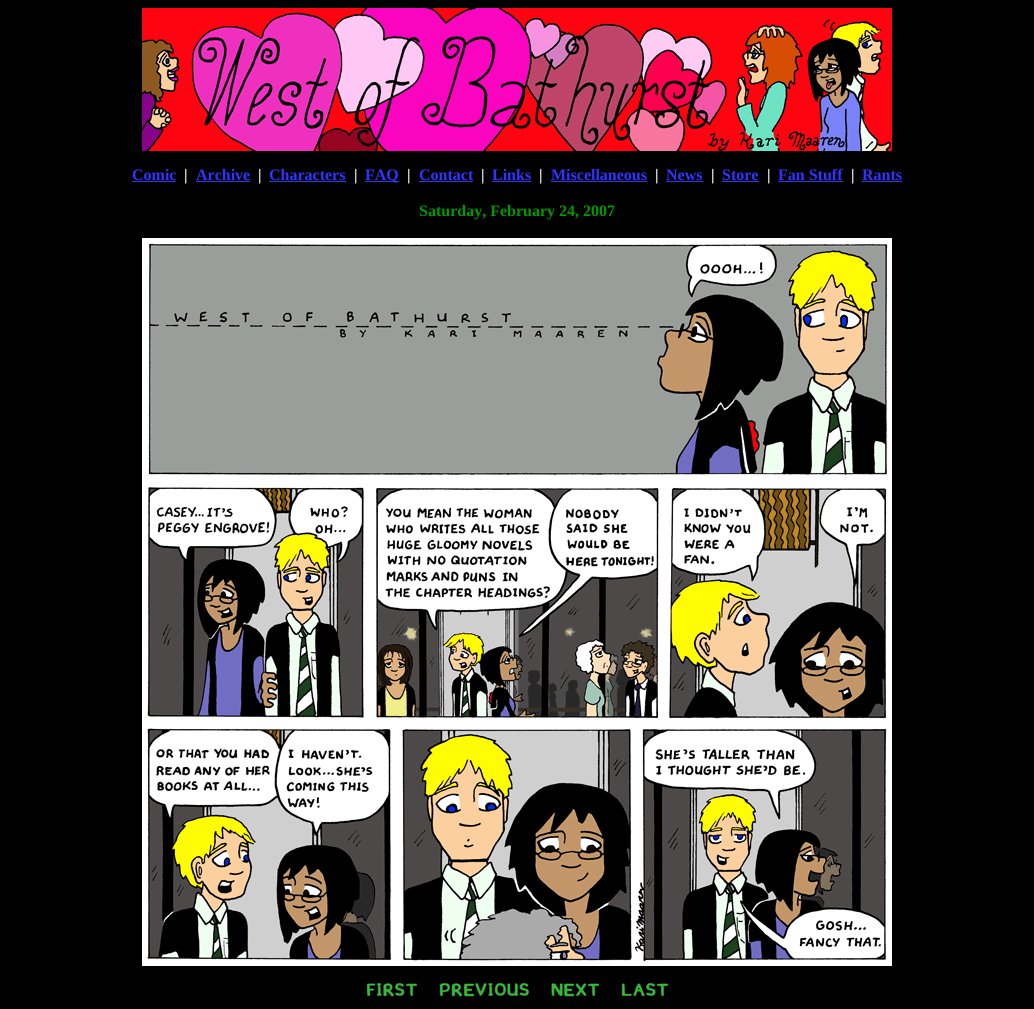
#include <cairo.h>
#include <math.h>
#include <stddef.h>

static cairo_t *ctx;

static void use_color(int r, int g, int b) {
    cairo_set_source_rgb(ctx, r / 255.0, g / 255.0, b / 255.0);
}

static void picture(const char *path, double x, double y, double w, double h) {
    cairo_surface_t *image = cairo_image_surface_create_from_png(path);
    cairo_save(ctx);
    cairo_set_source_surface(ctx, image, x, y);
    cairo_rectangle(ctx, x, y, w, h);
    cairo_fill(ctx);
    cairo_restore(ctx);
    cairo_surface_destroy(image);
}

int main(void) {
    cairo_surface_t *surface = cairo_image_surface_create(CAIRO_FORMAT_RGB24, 1034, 1009);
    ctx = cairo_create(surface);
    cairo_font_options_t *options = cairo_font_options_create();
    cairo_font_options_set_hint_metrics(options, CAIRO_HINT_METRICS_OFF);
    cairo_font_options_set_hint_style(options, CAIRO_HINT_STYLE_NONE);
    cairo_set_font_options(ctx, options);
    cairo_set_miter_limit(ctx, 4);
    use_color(0, 0, 0);
    cairo_paint(ctx);
    picture("img1.png", 142, 8, 750, 143);
    cairo_select_font_face(ctx, "Liberation Serif", CAIRO_FONT_SLANT_NORMAL, CAIRO_FONT_WEIGHT_BOLD);
    cairo_set_font_size(ctx, 16);
    use_color(51, 51, 255);
    cairo_move_to(ctx, 132, 180);
    cairo_show_text(ctx, "Comic");
    cairo_rectangle(ctx, 132, 181, 44, 1);
    cairo_fill(ctx);
    use_color(255, 255, 255);
    cairo_move_to(ctx, 184, 180);
    cairo_show_text(ctx, "|");
    use_color(51, 51, 255);
    cairo_move_to(ctx, 196, 180);
    cairo_show_text(ctx, "Archive");
    cairo_rectangle(ctx, 196, 181, 54, 1);
    cairo_fill(ctx);
    use_color(255, 255, 255);
    cairo_move_to(ctx, 258, 180);
    cairo_show_text(ctx, "|");
    use_color(51, 51, 255);
    cairo_move_to(ctx, 269, 180);
    cairo_show_text(ctx, "Characters");
    cairo_rectangle(ctx, 269, 181, 77, 1);
    cairo_fill(ctx);
    use_color(255, 255, 255);
    cairo_move_to(ctx, 354, 180);
    cairo_show_text(ctx, "|");
    use_color(51, 51, 255);
    cairo_rectangle(ctx, 365, 181, 34, 1);
    cairo_fill(ctx);
    cairo_move_to(ctx, 365, 180);
    cairo_show_text(ctx, "FAQ");
    use_color(255, 255, 255);
    cairo_move_to(ctx, 407, 180);
    cairo_show_text(ctx, "|");
    use_color(51, 51, 255);
    cairo_move_to(ctx, 419, 180);
    cairo_show_text(ctx, "Contact");
    cairo_rectangle(ctx, 419, 181, 54, 1);
    cairo_fill(ctx);
    use_color(255, 255, 255);
    cairo_move_to(ctx, 481, 180);
    cairo_show_text(ctx, "|");
    use_color(51, 51, 255);
    cairo_move_to(ctx, 492, 180);
    cairo_show_text(ctx, "Links");
    cairo_rectangle(ctx, 492, 181, 39, 1);
    cairo_fill(ctx);
    use_color(255, 255, 255);
    cairo_move_to(ctx, 539, 180);
    cairo_show_text(ctx, "|");
    use_color(51, 51, 255);
    cairo_move_to(ctx, 551, 180);
    cairo_show_text(ctx, "Miscellaneous");
    cairo_rectangle(ctx, 551, 181, 96, 1);
    cairo_fill(ctx);
    use_color(255, 255, 255);
    cairo_move_to(ctx, 655, 180);
    cairo_show_text(ctx, "|");
    use_color(51, 51, 255);
    cairo_move_to(ctx, 666, 180);
    cairo_show_text(ctx, "News");
    cairo_rectangle(ctx, 666, 181, 37, 1);
    cairo_fill(ctx);
    use_color(255, 255, 255);
    cairo_move_to(ctx, 711, 180);
    cairo_show_text(ctx, "|");
    use_color(51, 51, 255);
    cairo_move_to(ctx, 722, 180);
    cairo_show_text(ctx, "Store");
    cairo_rectangle(ctx, 722, 181, 37, 1);
    cairo_fill(ctx);
    use_color(255, 255, 255);
    cairo_move_to(ctx, 767, 180);
    cairo_show_text(ctx, "|");
    use_color(51, 51, 255);
    cairo_move_to(ctx, 778, 180);
    cairo_show_text(ctx, "Fan Stuff");
    cairo_rectangle(ctx, 778, 181, 65, 1);
    cairo_fill(ctx);
    use_color(255, 255, 255);
    cairo_move_to(ctx, 851, 180);
    cairo_show_text(ctx, "|");
    use_color(51, 51, 255);
    cairo_move_to(ctx, 862, 180);
    cairo_show_text(ctx, "Rants");
    cairo_rectangle(ctx, 862, 181, 40, 1);
    cairo_fill(ctx);
    use_color(0, 153, 0);
    cairo_move_to(ctx, 419, 216);
    cairo_show_text(ctx, "Saturday, February 24, 2007");
    picture("img2.png", 142, 238, 750, 728);
    picture("img3.png", 366, 983, 51, 14);
    picture("img4.png", 439, 983, 90, 14);
    picture("img5.png", 551, 983, 48, 14);
    picture("img6.png", 621, 983, 47, 14);
    cairo_surface_write_to_png(surface, "result.png");
    cairo_font_options_destroy(options);
    cairo_destroy(ctx);
    cairo_surface_destroy(surface);
    return 0;
}
